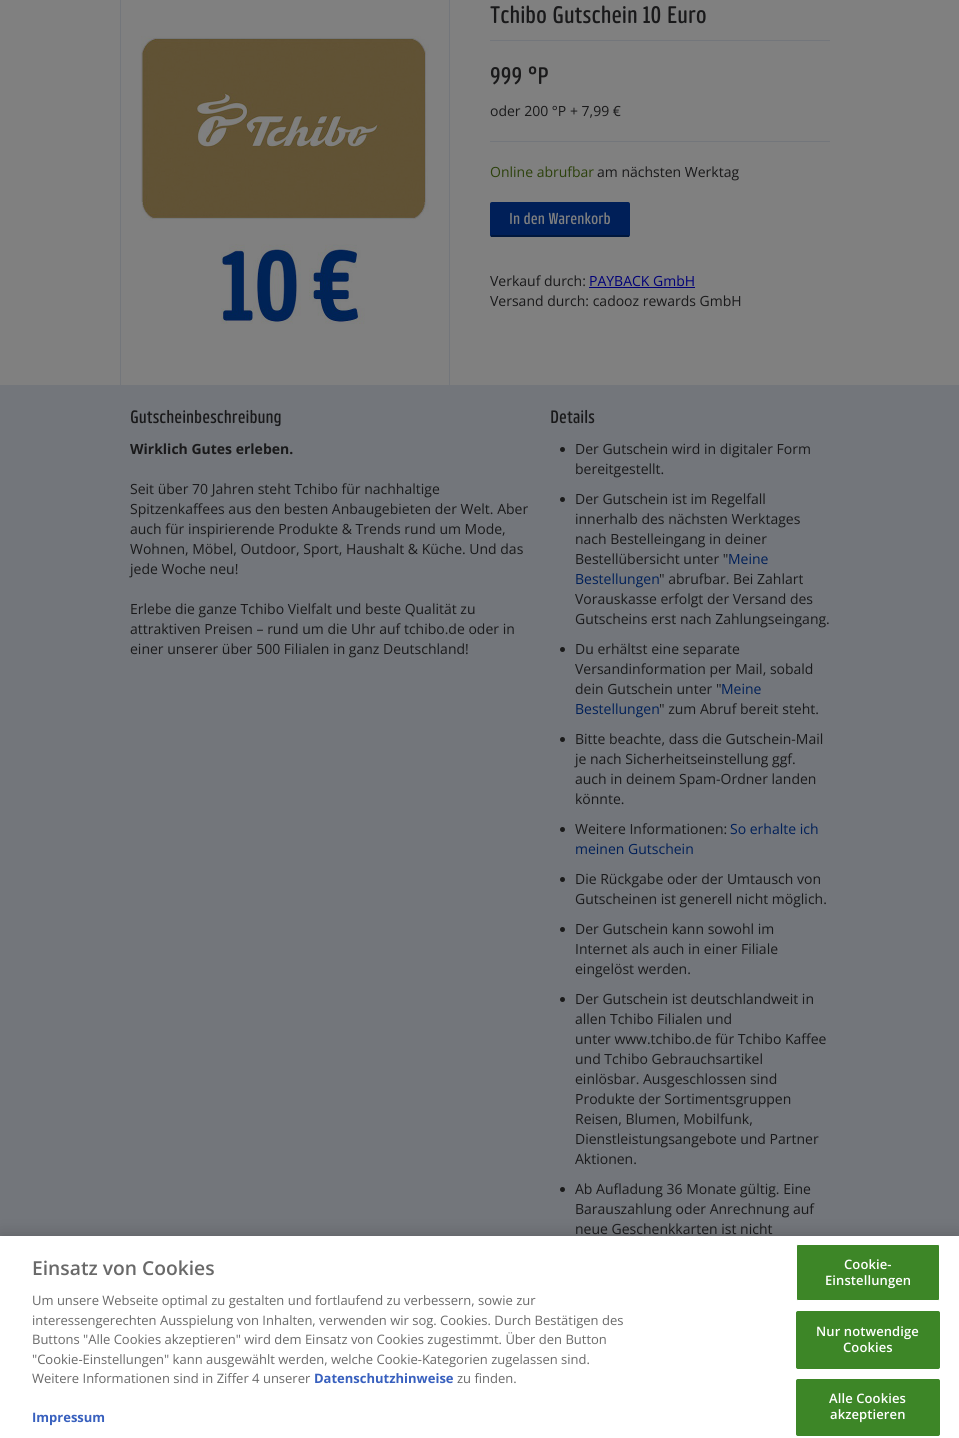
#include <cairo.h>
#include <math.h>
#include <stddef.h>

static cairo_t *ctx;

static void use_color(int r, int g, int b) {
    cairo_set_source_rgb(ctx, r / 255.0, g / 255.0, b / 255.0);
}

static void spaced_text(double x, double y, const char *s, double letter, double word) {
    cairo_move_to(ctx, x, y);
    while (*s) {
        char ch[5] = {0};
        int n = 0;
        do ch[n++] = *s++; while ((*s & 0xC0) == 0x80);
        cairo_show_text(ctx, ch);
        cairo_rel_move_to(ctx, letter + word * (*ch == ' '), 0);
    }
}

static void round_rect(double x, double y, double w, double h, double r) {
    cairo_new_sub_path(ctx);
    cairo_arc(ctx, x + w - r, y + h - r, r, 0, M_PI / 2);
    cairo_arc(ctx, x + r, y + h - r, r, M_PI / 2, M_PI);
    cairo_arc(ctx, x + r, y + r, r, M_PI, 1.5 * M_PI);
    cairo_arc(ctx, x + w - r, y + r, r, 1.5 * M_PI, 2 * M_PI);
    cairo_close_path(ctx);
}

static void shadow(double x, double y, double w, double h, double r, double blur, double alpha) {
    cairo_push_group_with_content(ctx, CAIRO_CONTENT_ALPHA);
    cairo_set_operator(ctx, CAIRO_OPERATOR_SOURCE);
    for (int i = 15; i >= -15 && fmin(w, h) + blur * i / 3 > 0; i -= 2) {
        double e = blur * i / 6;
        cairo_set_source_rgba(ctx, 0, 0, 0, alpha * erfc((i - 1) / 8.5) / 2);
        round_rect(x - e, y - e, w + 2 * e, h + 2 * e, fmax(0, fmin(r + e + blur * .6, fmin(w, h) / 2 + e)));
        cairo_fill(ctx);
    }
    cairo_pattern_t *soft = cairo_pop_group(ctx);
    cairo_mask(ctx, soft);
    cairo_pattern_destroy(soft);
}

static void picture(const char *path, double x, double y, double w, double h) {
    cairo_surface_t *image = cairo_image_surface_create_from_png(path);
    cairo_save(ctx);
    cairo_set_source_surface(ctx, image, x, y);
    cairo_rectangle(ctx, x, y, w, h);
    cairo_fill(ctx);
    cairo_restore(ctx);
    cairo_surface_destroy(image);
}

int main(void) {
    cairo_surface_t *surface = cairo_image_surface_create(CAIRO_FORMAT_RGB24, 959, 1438);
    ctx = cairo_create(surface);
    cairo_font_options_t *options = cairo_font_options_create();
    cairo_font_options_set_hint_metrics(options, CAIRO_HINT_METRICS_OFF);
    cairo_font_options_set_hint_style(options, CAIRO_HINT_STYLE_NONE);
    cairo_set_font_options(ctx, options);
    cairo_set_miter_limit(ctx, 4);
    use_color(115, 118, 123);
    cairo_paint(ctx);
    use_color(128, 128, 128);
    cairo_rectangle(ctx, 0, 0, 959, 385);
    cairo_fill(ctx);
    use_color(115, 118, 123);
    cairo_rectangle(ctx, 449, 0, 1, 385);
    cairo_fill(ctx);
    cairo_rectangle(ctx, 120, 0, 1, 385);
    cairo_fill(ctx);
    picture("img1.png", 141, 36, 288, 288);
    cairo_select_font_face(ctx, "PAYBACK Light", CAIRO_FONT_SLANT_NORMAL, CAIRO_FONT_WEIGHT_NORMAL);
    cairo_set_font_size(ctx, 24);
    use_color(25, 25, 26);
    cairo_move_to(ctx, 490, 23);
    cairo_show_text(ctx, "Tchibo Gutschein 10 Euro");
    use_color(115, 118, 123);
    cairo_rectangle(ctx, 490, 40, 340, 1);
    cairo_fill(ctx);
    use_color(25, 25, 26);
    cairo_move_to(ctx, 490, 84);
    cairo_show_text(ctx, "999 °P");
    cairo_select_font_face(ctx, "Open Sans", CAIRO_FONT_SLANT_NORMAL, CAIRO_FONT_WEIGHT_NORMAL);
    cairo_set_font_size(ctx, 14);
    cairo_move_to(ctx, 490, 116);
    cairo_show_text(ctx, "oder 200 °P + 7,99 €");
    use_color(115, 118, 123);
    cairo_rectangle(ctx, 490, 141, 340, 1);
    cairo_fill(ctx);
    use_color(44, 65, 11);
    cairo_move_to(ctx, 490, 177);
    cairo_show_text(ctx, "Online abrufbar");
    use_color(25, 25, 26);
    cairo_move_to(ctx, 597, 177);
    cairo_show_text(ctx, "am nächsten Werktag");
    use_color(0, 31, 88);
    round_rect(490, 202, 140, 35, 2);
    cairo_fill(ctx);
    use_color(0, 23, 61);
    cairo_rectangle(ctx, 491, 235, 138, 2);
    cairo_fill(ctx);
    cairo_select_font_face(ctx, "PAYBACK Light", CAIRO_FONT_SLANT_NORMAL, CAIRO_FONT_WEIGHT_NORMAL);
    cairo_set_font_size(ctx, 16);
    use_color(128, 128, 128);
    cairo_move_to(ctx, 509, 224);
    cairo_show_text(ctx, "In den Warenkorb");
    cairo_select_font_face(ctx, "Open Sans", CAIRO_FONT_SLANT_NORMAL, CAIRO_FONT_WEIGHT_NORMAL);
    cairo_set_font_size(ctx, 14);
    use_color(25, 25, 26);
    cairo_move_to(ctx, 490, 286);
    cairo_show_text(ctx, "Verkauf durch:");
    use_color(0, 0, 119);
    cairo_move_to(ctx, 589, 286);
    cairo_show_text(ctx, "PAYBACK GmbH");
    cairo_rectangle(ctx, 589, 287, 106, 1);
    cairo_fill(ctx);
    use_color(25, 25, 26);
    cairo_move_to(ctx, 490, 306);
    cairo_show_text(ctx, "Versand durch: cadooz rewards GmbH");
    cairo_select_font_face(ctx, "PAYBACK Light", CAIRO_FONT_SLANT_NORMAL, CAIRO_FONT_WEIGHT_NORMAL);
    cairo_set_font_size(ctx, 18);
    cairo_move_to(ctx, 130, 423);
    cairo_show_text(ctx, "Gutscheinbeschreibung");
    cairo_select_font_face(ctx, "Open Sans", CAIRO_FONT_SLANT_NORMAL, CAIRO_FONT_WEIGHT_BOLD);
    cairo_set_font_size(ctx, 14);
    cairo_move_to(ctx, 130, 454);
    cairo_show_text(ctx, "Wirklich Gutes erleben.");
    cairo_select_font_face(ctx, "Open Sans", CAIRO_FONT_SLANT_NORMAL, CAIRO_FONT_WEIGHT_NORMAL);
    cairo_move_to(ctx, 130, 494);
    cairo_show_text(ctx, "Seit über 70 Jahren steht Tchibo für nachhaltige");
    cairo_move_to(ctx, 130, 514);
    cairo_show_text(ctx, "Spitzenkaffees aus den besten Anbaugebieten der Welt. Aber");
    cairo_move_to(ctx, 130, 534);
    cairo_show_text(ctx, "auch für inspirierende Produkte & Trends rund um Mode,");
    cairo_move_to(ctx, 130, 554);
    cairo_show_text(ctx, "Wohnen, Möbel, Outdoor, Sport, Haushalt & Küche. Und das");
    cairo_move_to(ctx, 130, 574);
    cairo_show_text(ctx, "jede Woche neu!");
    cairo_move_to(ctx, 130, 614);
    cairo_show_text(ctx, "Erlebe die ganze Tchibo Vielfalt und beste Qualität zu");
    cairo_move_to(ctx, 130, 634);
    cairo_show_text(ctx, "attraktiven Preisen – rund um die Uhr auf tchibo.de oder in");
    cairo_move_to(ctx, 130, 654);
    cairo_show_text(ctx, "einer unserer über 500 Filialen in ganz Deutschland!");
    cairo_select_font_face(ctx, "PAYBACK Light", CAIRO_FONT_SLANT_NORMAL, CAIRO_FONT_WEIGHT_NORMAL);
    cairo_set_font_size(ctx, 18);
    cairo_move_to(ctx, 550, 423);
    cairo_show_text(ctx, "Details");
    use_color(26, 26, 26);
    cairo_new_path(ctx);
    cairo_arc(ctx, 562.5, 449.5, 2.5, 0, 2 * M_PI);
    cairo_fill(ctx);
    cairo_select_font_face(ctx, "Open Sans", CAIRO_FONT_SLANT_NORMAL, CAIRO_FONT_WEIGHT_NORMAL);
    cairo_set_font_size(ctx, 14);
    use_color(25, 25, 26);
    cairo_move_to(ctx, 575, 454);
    cairo_show_text(ctx, "Der Gutschein wird in digitaler Form");
    cairo_move_to(ctx, 575, 474);
    cairo_show_text(ctx, "bereitgestellt.");
    use_color(26, 26, 26);
    cairo_new_path(ctx);
    cairo_arc(ctx, 562.5, 499.5, 2.5, 0, 2 * M_PI);
    cairo_fill(ctx);
    use_color(25, 25, 26);
    cairo_move_to(ctx, 575, 504);
    cairo_show_text(ctx, "Der Gutschein ist im Regelfall");
    cairo_move_to(ctx, 575, 524);
    cairo_show_text(ctx, "innerhalb des nächsten Werktages");
    cairo_move_to(ctx, 575, 544);
    cairo_show_text(ctx, "nach Bestelleingang in deiner");
    cairo_move_to(ctx, 575, 564);
    cairo_show_text(ctx, "Bestellübersicht unter \"");
    use_color(0, 31, 88);
    cairo_move_to(ctx, 728, 564);
    cairo_show_text(ctx, "Meine");
    cairo_move_to(ctx, 575, 584);
    cairo_show_text(ctx, "Bestellungen");
    use_color(25, 25, 26);
    cairo_move_to(ctx, 659, 584);
    cairo_show_text(ctx, "\" abrufbar. Bei Zahlart");
    cairo_move_to(ctx, 575, 604);
    cairo_show_text(ctx, "Vorauskasse erfolgt der Versand des");
    cairo_move_to(ctx, 575, 624);
    cairo_show_text(ctx, "Gutscheins erst nach Zahlungseingang.");
    use_color(26, 26, 26);
    cairo_new_path(ctx);
    cairo_arc(ctx, 562.5, 649.5, 2.5, 0, 2 * M_PI);
    cairo_fill(ctx);
    use_color(25, 25, 26);
    cairo_move_to(ctx, 575, 654);
    cairo_show_text(ctx, "Du erhältst eine separate");
    cairo_move_to(ctx, 575, 674);
    cairo_show_text(ctx, "Versandinformation per Mail, sobald");
    cairo_move_to(ctx, 575, 694);
    cairo_show_text(ctx, "dein Gutschein unter \"");
    use_color(0, 31, 88);
    cairo_move_to(ctx, 721, 694);
    cairo_show_text(ctx, "Meine");
    cairo_move_to(ctx, 575, 714);
    cairo_show_text(ctx, "Bestellungen");
    use_color(25, 25, 26);
    cairo_move_to(ctx, 659, 714);
    cairo_show_text(ctx, "\" zum Abruf bereit steht.");
    use_color(26, 26, 26);
    cairo_new_path(ctx);
    cairo_arc(ctx, 562.5, 739.5, 2.5, 0, 2 * M_PI);
    cairo_fill(ctx);
    use_color(25, 25, 26);
    cairo_move_to(ctx, 575, 744);
    cairo_show_text(ctx, "Bitte beachte, dass die Gutschein-Mail");
    cairo_move_to(ctx, 575, 764);
    cairo_show_text(ctx, "je nach Sicherheitseinstellung ggf.");
    cairo_move_to(ctx, 575, 784);
    cairo_show_text(ctx, "auch in deinem Spam-Ordner landen");
    cairo_move_to(ctx, 575, 804);
    cairo_show_text(ctx, "könnte.");
    use_color(26, 26, 26);
    cairo_new_path(ctx);
    cairo_arc(ctx, 562.5, 829.5, 2.5, 0, 2 * M_PI);
    cairo_fill(ctx);
    use_color(25, 25, 26);
    cairo_move_to(ctx, 575, 834);
    cairo_show_text(ctx, "Weitere Informationen:");
    use_color(0, 31, 88);
    cairo_move_to(ctx, 730, 834);
    cairo_show_text(ctx, "So erhalte ich");
    cairo_move_to(ctx, 575, 854);
    cairo_show_text(ctx, "meinen Gutschein");
    use_color(26, 26, 26);
    cairo_new_path(ctx);
    cairo_arc(ctx, 562.5, 879.5, 2.5, 0, 2 * M_PI);
    cairo_fill(ctx);
    use_color(25, 25, 26);
    cairo_move_to(ctx, 575, 884);
    cairo_show_text(ctx, "Die Rückgabe oder der Umtausch von");
    cairo_move_to(ctx, 575, 904);
    cairo_show_text(ctx, "Gutscheinen ist generell nicht möglich.");
    use_color(26, 26, 26);
    cairo_new_path(ctx);
    cairo_arc(ctx, 562.5, 929.5, 2.5, 0, 2 * M_PI);
    cairo_fill(ctx);
    use_color(25, 25, 26);
    cairo_move_to(ctx, 575, 934);
    cairo_show_text(ctx, "Der Gutschein kann sowohl im");
    cairo_move_to(ctx, 575, 954);
    cairo_show_text(ctx, "Internet als auch in einer Filiale");
    cairo_move_to(ctx, 575, 974);
    cairo_show_text(ctx, "eingelöst werden.");
    use_color(26, 26, 26);
    cairo_new_path(ctx);
    cairo_arc(ctx, 562.5, 999.5, 2.5, 0, 2 * M_PI);
    cairo_fill(ctx);
    use_color(25, 25, 26);
    cairo_move_to(ctx, 575, 1004);
    cairo_show_text(ctx, "Der Gutschein ist deutschlandweit in");
    cairo_move_to(ctx, 575, 1024);
    cairo_show_text(ctx, "allen Tchibo Filialen und");
    cairo_move_to(ctx, 575, 1044);
    cairo_show_text(ctx, "unter www.tchibo.de für Tchibo Kaffee");
    cairo_move_to(ctx, 575, 1064);
    cairo_show_text(ctx, "und Tchibo Gebrauchsartikel");
    cairo_move_to(ctx, 575, 1084);
    cairo_show_text(ctx, "einlösbar. Ausgeschlossen sind");
    cairo_move_to(ctx, 575, 1104);
    cairo_show_text(ctx, "Produkte der Sortimentsgruppen");
    cairo_move_to(ctx, 575, 1124);
    cairo_show_text(ctx, "Reisen, Blumen, Mobilfunk,");
    cairo_move_to(ctx, 575, 1144);
    cairo_show_text(ctx, "Dienstleistungsangebote und Partner");
    cairo_move_to(ctx, 575, 1164);
    cairo_show_text(ctx, "Aktionen.");
    use_color(26, 26, 26);
    cairo_new_path(ctx);
    cairo_arc(ctx, 562.5, 1189.5, 2.5, 0, 2 * M_PI);
    cairo_fill(ctx);
    use_color(25, 25, 26);
    cairo_move_to(ctx, 575, 1194);
    cairo_show_text(ctx, "Ab Aufladung 36 Monate gültig. Eine");
    cairo_move_to(ctx, 575, 1214);
    cairo_show_text(ctx, "Barauszahlung oder Anrechnung auf");
    cairo_move_to(ctx, 575, 1234);
    cairo_show_text(ctx, "neue Geschenkkarten ist nicht");
    use_color(0, 0, 0);
    shadow(0, 1236, 959, 202, 0, 9, 0.2);
    use_color(255, 255, 255);
    cairo_rectangle(ctx, 0, 1236, 959, 202);
    cairo_fill(ctx);
    cairo_select_font_face(ctx, "Open Sans SemiBold", CAIRO_FONT_SLANT_NORMAL, CAIRO_FONT_WEIGHT_NORMAL);
    cairo_set_font_size(ctx, 19.25);
    use_color(105, 105, 105);
    cairo_move_to(ctx, 32, 1275);
    cairo_show_text(ctx, "Einsatz von Cookies");
    cairo_select_font_face(ctx, "Open Sans", CAIRO_FONT_SLANT_NORMAL, CAIRO_FONT_WEIGHT_NORMAL);
    cairo_set_font_size(ctx, 13);
    cairo_move_to(ctx, 32, 1305);
    cairo_show_text(ctx, "Um unsere Webseite optimal zu gestalten und fortlaufend zu verbessern, sowie zur");
    cairo_move_to(ctx, 32, 1325);
    cairo_show_text(ctx, "interessengerechten Ausspielung von Inhalten, verwenden wir sog. Cookies. Durch Bestätigen des");
    cairo_move_to(ctx, 32, 1344);
    cairo_show_text(ctx, "Buttons \"Alle Cookies akzeptieren\" wird dem Einsatz von Cookies zugestimmt. Über den Button");
    cairo_move_to(ctx, 32, 1364);
    cairo_show_text(ctx, "\"Cookie-Einstellungen\" kann ausgewählt werden, welche Cookie-Kategorien zugelassen sind.");
    cairo_move_to(ctx, 32, 1383);
    cairo_show_text(ctx, "Weitere Informationen sind in Ziffer 4 unserer");
    cairo_select_font_face(ctx, "Open Sans", CAIRO_FONT_SLANT_NORMAL, CAIRO_FONT_WEIGHT_BOLD);
    use_color(56, 96, 190);
    cairo_move_to(ctx, 314, 1383);
    cairo_show_text(ctx, "Datenschutzhinweise");
    cairo_select_font_face(ctx, "Open Sans", CAIRO_FONT_SLANT_NORMAL, CAIRO_FONT_WEIGHT_NORMAL);
    use_color(105, 105, 105);
    cairo_move_to(ctx, 457, 1383);
    cairo_show_text(ctx, "zu finden.");
    cairo_select_font_face(ctx, "Open Sans", CAIRO_FONT_SLANT_NORMAL, CAIRO_FONT_WEIGHT_BOLD);
    use_color(56, 96, 190);
    cairo_move_to(ctx, 32, 1422);
    cairo_show_text(ctx, "Impressum");
    use_color(61, 134, 39);
    round_rect(796.5, 1244.5, 143, 56, 1.5);
    cairo_fill_preserve(ctx);
    use_color(255, 255, 255);
    cairo_set_line_width(ctx, 1);
    cairo_stroke(ctx);
    cairo_select_font_face(ctx, "Open Sans SemiBold", CAIRO_FONT_SLANT_NORMAL, CAIRO_FONT_WEIGHT_NORMAL);
    spaced_text(844, 1269, "Cookie-", 0.1, 0);
    spaced_text(825, 1285, "Einstellungen", 0.1, 0);
    use_color(61, 134, 39);
    round_rect(796.5, 1311.5, 143, 57, 1.5);
    cairo_fill_preserve(ctx);
    cairo_stroke(ctx);
    use_color(255, 255, 255);
    spaced_text(816, 1336, "Nur notwendige", 0.1, 0);
    spaced_text(843, 1352, "Cookies", 0.1, 0);
    use_color(61, 134, 39);
    round_rect(796.5, 1379.5, 143, 56, 1.5);
    cairo_fill_preserve(ctx);
    cairo_stroke(ctx);
    use_color(255, 255, 255);
    spaced_text(829, 1403, "Alle Cookies", 0.1, 0);
    spaced_text(830, 1419, "akzeptieren", 0.1, 0);
    cairo_surface_write_to_png(surface, "result.png");
    cairo_font_options_destroy(options);
    cairo_destroy(ctx);
    cairo_surface_destroy(surface);
    return 0;
}
